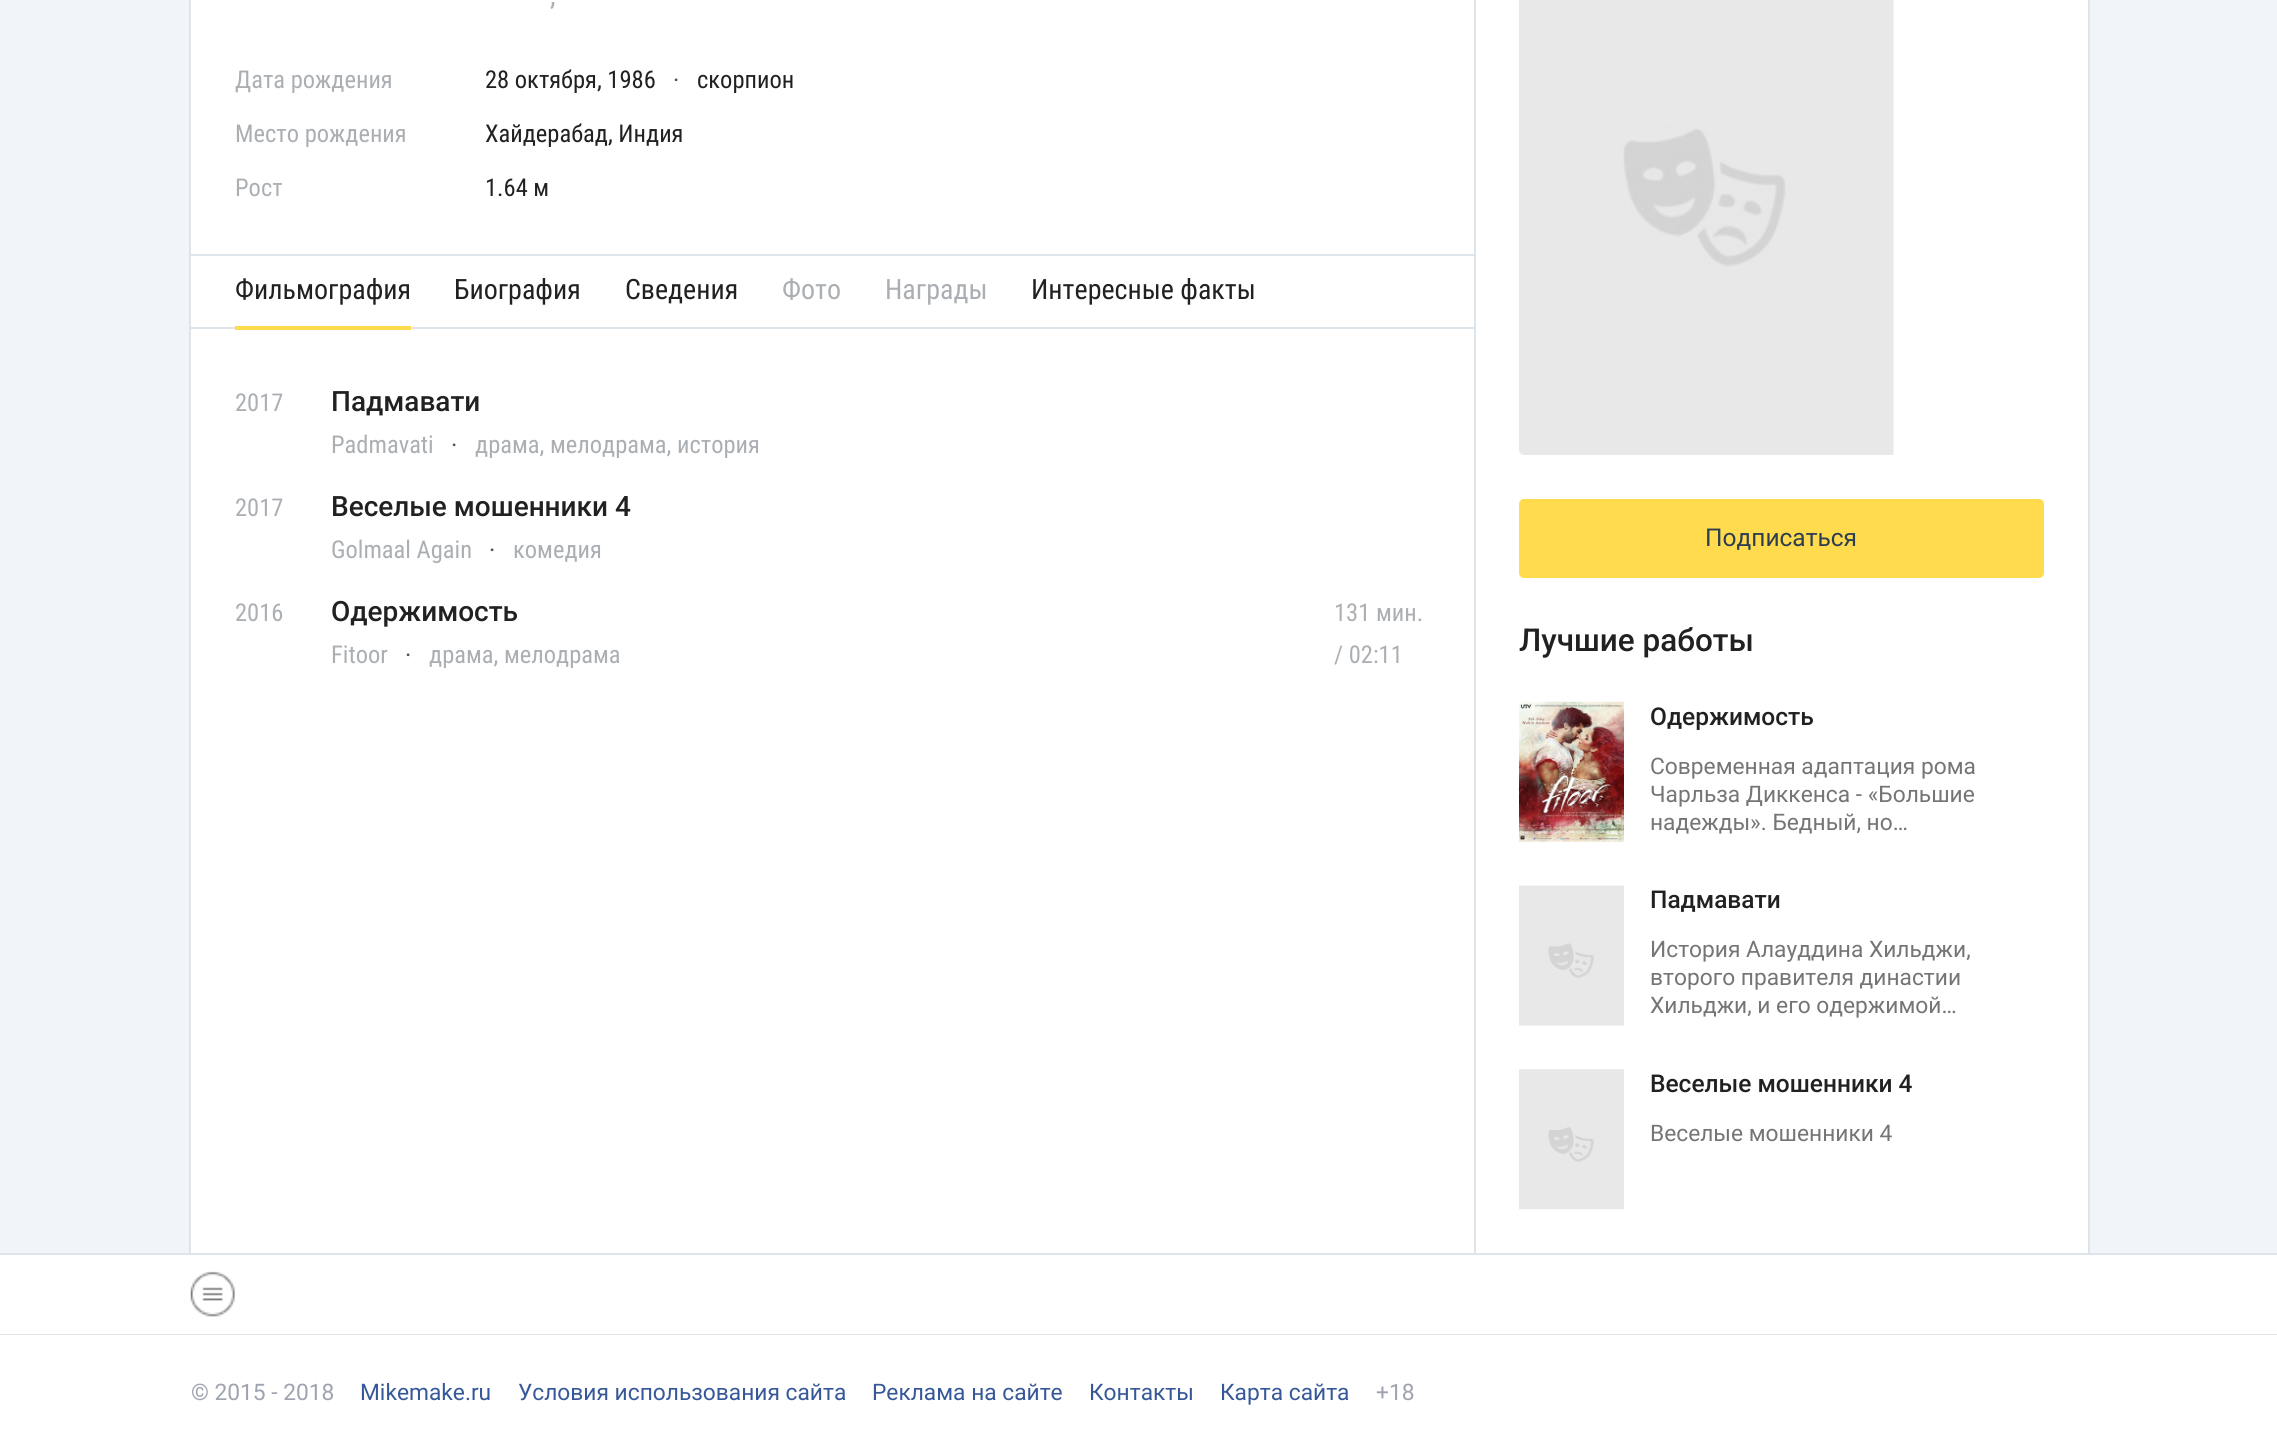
#include <cairo.h>
#include <math.h>
#include <stddef.h>

static cairo_t *ctx;

static void use_color(int r, int g, int b) {
    cairo_set_source_rgb(ctx, r / 255.0, g / 255.0, b / 255.0);
}

static void round_rect(double x, double y, double w, double h, double r) {
    cairo_new_sub_path(ctx);
    cairo_arc(ctx, x + w - r, y + h - r, r, 0, M_PI / 2);
    cairo_arc(ctx, x + r, y + h - r, r, M_PI / 2, M_PI);
    cairo_arc(ctx, x + r, y + r, r, M_PI, 1.5 * M_PI);
    cairo_arc(ctx, x + w - r, y + r, r, 1.5 * M_PI, 2 * M_PI);
    cairo_close_path(ctx);
}

static void picture(const char *path, double x, double y, double w, double h) {
    cairo_surface_t *image = cairo_image_surface_create_from_png(path);
    cairo_save(ctx);
    cairo_set_source_surface(ctx, image, x, y);
    cairo_rectangle(ctx, x, y, w, h);
    cairo_fill(ctx);
    cairo_restore(ctx);
    cairo_surface_destroy(image);
}

int main(void) {
    cairo_surface_t *surface = cairo_image_surface_create(CAIRO_FORMAT_RGB24, 2277, 1448);
    ctx = cairo_create(surface);
    cairo_font_options_t *options = cairo_font_options_create();
    cairo_font_options_set_hint_metrics(options, CAIRO_HINT_METRICS_OFF);
    cairo_font_options_set_hint_style(options, CAIRO_HINT_STYLE_NONE);
    cairo_set_font_options(ctx, options);
    cairo_set_miter_limit(ctx, 4);
    use_color(241, 245, 249);
    cairo_paint(ctx);
    use_color(255, 255, 255);
    cairo_rectangle(ctx, 191, 0, 1897, 1253);
    cairo_fill(ctx);
    use_color(221, 229, 235);
    cairo_rectangle(ctx, 2088, 0, 2, 1253);
    cairo_fill(ctx);
    cairo_rectangle(ctx, 189, 0, 2, 1253);
    cairo_fill(ctx);
    cairo_select_font_face(ctx, "Roboto Condensed", CAIRO_FONT_SLANT_NORMAL, CAIRO_FONT_WEIGHT_NORMAL);
    cairo_set_font_size(ctx, 28);
    use_color(171, 175, 179);
    cairo_move_to(ctx, 550, 5);
    cairo_show_text(ctx, ",");
    cairo_set_font_size(ctx, 24.5);
    cairo_move_to(ctx, 235, 88);
    cairo_show_text(ctx, "Дата рождения");
    use_color(33, 33, 33);
    cairo_move_to(ctx, 485, 88);
    cairo_show_text(ctx, "28 октября, 1986");
    use_color(82, 82, 82);
    cairo_move_to(ctx, 673, 81);
    cairo_show_text(ctx, ".");
    use_color(33, 33, 33);
    cairo_move_to(ctx, 697, 88);
    cairo_show_text(ctx, "скорпион");
    use_color(171, 175, 179);
    cairo_move_to(ctx, 235, 142);
    cairo_show_text(ctx, "Место рождения");
    use_color(33, 33, 33);
    cairo_move_to(ctx, 485, 142);
    cairo_show_text(ctx, "Хайдерабад, Индия");
    use_color(171, 175, 179);
    cairo_move_to(ctx, 235, 196);
    cairo_show_text(ctx, "Рост");
    use_color(33, 33, 33);
    cairo_move_to(ctx, 485, 196);
    cairo_show_text(ctx, "1.64 м");
    use_color(221, 229, 235);
    cairo_rectangle(ctx, 191, 254, 1284, 2);
    cairo_fill(ctx);
    cairo_rectangle(ctx, 191, 327, 1284, 2);
    cairo_fill(ctx);
    use_color(255, 219, 77);
    cairo_rectangle(ctx, 235, 326, 176, 4);
    cairo_fill(ctx);
    cairo_set_font_size(ctx, 28);
    use_color(33, 33, 33);
    cairo_move_to(ctx, 235, 299);
    cairo_show_text(ctx, "Фильмография");
    cairo_move_to(ctx, 454, 299);
    cairo_show_text(ctx, "Биография");
    cairo_move_to(ctx, 625, 299);
    cairo_show_text(ctx, "Сведения");
    use_color(171, 175, 179);
    cairo_move_to(ctx, 782, 299);
    cairo_show_text(ctx, "Фото");
    cairo_move_to(ctx, 885, 299);
    cairo_show_text(ctx, "Награды");
    use_color(33, 33, 33);
    cairo_move_to(ctx, 1031, 299);
    cairo_show_text(ctx, "Интересные факты");
    cairo_set_font_size(ctx, 24.5);
    use_color(171, 175, 179);
    cairo_move_to(ctx, 235, 411);
    cairo_show_text(ctx, "2017");
    cairo_select_font_face(ctx, "Roboto Medium", CAIRO_FONT_SLANT_NORMAL, CAIRO_FONT_WEIGHT_NORMAL);
    cairo_set_font_size(ctx, 28);
    use_color(33, 33, 33);
    cairo_move_to(ctx, 331, 411);
    cairo_show_text(ctx, "Падмавати");
    cairo_select_font_face(ctx, "Roboto Condensed", CAIRO_FONT_SLANT_NORMAL, CAIRO_FONT_WEIGHT_NORMAL);
    cairo_set_font_size(ctx, 24.5);
    use_color(171, 175, 179);
    cairo_move_to(ctx, 331, 453);
    cairo_show_text(ctx, "Padmavati");
    use_color(82, 82, 82);
    cairo_move_to(ctx, 451, 446);
    cairo_show_text(ctx, ".");
    use_color(171, 175, 179);
    cairo_move_to(ctx, 475, 453);
    cairo_show_text(ctx, "драма, мелодрама, история");
    cairo_move_to(ctx, 235, 516);
    cairo_show_text(ctx, "2017");
    cairo_select_font_face(ctx, "Roboto Medium", CAIRO_FONT_SLANT_NORMAL, CAIRO_FONT_WEIGHT_NORMAL);
    cairo_set_font_size(ctx, 28);
    use_color(33, 33, 33);
    cairo_move_to(ctx, 331, 516);
    cairo_show_text(ctx, "Веселые мошенники 4");
    cairo_select_font_face(ctx, "Roboto Condensed", CAIRO_FONT_SLANT_NORMAL, CAIRO_FONT_WEIGHT_NORMAL);
    cairo_set_font_size(ctx, 24.5);
    use_color(171, 175, 179);
    cairo_move_to(ctx, 331, 558);
    cairo_show_text(ctx, "Golmaal Again");
    use_color(82, 82, 82);
    cairo_move_to(ctx, 489, 551);
    cairo_show_text(ctx, ".");
    use_color(171, 175, 179);
    cairo_move_to(ctx, 513, 558);
    cairo_show_text(ctx, "комедия");
    cairo_move_to(ctx, 235, 621);
    cairo_show_text(ctx, "2016");
    cairo_select_font_face(ctx, "Roboto Medium", CAIRO_FONT_SLANT_NORMAL, CAIRO_FONT_WEIGHT_NORMAL);
    cairo_set_font_size(ctx, 28);
    use_color(33, 33, 33);
    cairo_move_to(ctx, 331, 621);
    cairo_show_text(ctx, "Одержимость");
    cairo_select_font_face(ctx, "Roboto Condensed", CAIRO_FONT_SLANT_NORMAL, CAIRO_FONT_WEIGHT_NORMAL);
    cairo_set_font_size(ctx, 24.5);
    use_color(171, 175, 179);
    cairo_move_to(ctx, 1334, 621);
    cairo_show_text(ctx, "131 мин.");
    cairo_move_to(ctx, 1334, 663);
    cairo_show_text(ctx, "/ 02:11");
    cairo_move_to(ctx, 331, 663);
    cairo_show_text(ctx, "Fitoor");
    use_color(82, 82, 82);
    cairo_move_to(ctx, 405, 656);
    cairo_show_text(ctx, ".");
    use_color(171, 175, 179);
    cairo_move_to(ctx, 429, 663);
    cairo_show_text(ctx, "драма, мелодрама");
    use_color(221, 229, 235);
    cairo_rectangle(ctx, 1474, 0, 2, 1253);
    cairo_fill(ctx);
    picture("img1.png", 1519, 0, 375, 455);
    use_color(255, 219, 77);
    round_rect(1519, 499, 525, 79, 5);
    cairo_fill(ctx);
    cairo_select_font_face(ctx, "Roboto", CAIRO_FONT_SLANT_NORMAL, CAIRO_FONT_WEIGHT_NORMAL);
    use_color(44, 62, 80);
    cairo_move_to(ctx, 1705, 546);
    cairo_show_text(ctx, "Подписаться");
    cairo_select_font_face(ctx, "Roboto Medium", CAIRO_FONT_SLANT_NORMAL, CAIRO_FONT_WEIGHT_NORMAL);
    cairo_set_font_size(ctx, 31.5);
    use_color(33, 33, 33);
    cairo_move_to(ctx, 1519, 651);
    cairo_show_text(ctx, "Лучшие работы");
    picture("img2.png", 1519, 701, 105, 141);
    cairo_set_font_size(ctx, 24.5);
    cairo_move_to(ctx, 1650, 725);
    cairo_show_text(ctx, "Одержимость");
    cairo_select_font_face(ctx, "Roboto", CAIRO_FONT_SLANT_NORMAL, CAIRO_FONT_WEIGHT_NORMAL);
    cairo_set_font_size(ctx, 22.75);
    use_color(117, 117, 117);
    cairo_move_to(ctx, 1650, 774);
    cairo_show_text(ctx, "Современная адаптация рома");
    cairo_move_to(ctx, 1650, 802);
    cairo_show_text(ctx, "Чарльза Диккенса - «Большие");
    cairo_move_to(ctx, 1650, 830);
    cairo_show_text(ctx, "надежды». Бедный, но…");
    picture("img3.png", 1519, 885, 105, 141);
    cairo_select_font_face(ctx, "Roboto Medium", CAIRO_FONT_SLANT_NORMAL, CAIRO_FONT_WEIGHT_NORMAL);
    cairo_set_font_size(ctx, 24.5);
    use_color(33, 33, 33);
    cairo_move_to(ctx, 1650, 908);
    cairo_show_text(ctx, "Падмавати");
    cairo_select_font_face(ctx, "Roboto", CAIRO_FONT_SLANT_NORMAL, CAIRO_FONT_WEIGHT_NORMAL);
    cairo_set_font_size(ctx, 22.75);
    use_color(117, 117, 117);
    cairo_move_to(ctx, 1650, 957);
    cairo_show_text(ctx, "История Алауддина Хильджи,");
    cairo_move_to(ctx, 1650, 985);
    cairo_show_text(ctx, "второго правителя династии");
    cairo_move_to(ctx, 1650, 1013);
    cairo_show_text(ctx, "Хильджи, и его одержимой…");
    picture("img4.png", 1519, 1069, 105, 141);
    cairo_select_font_face(ctx, "Roboto Medium", CAIRO_FONT_SLANT_NORMAL, CAIRO_FONT_WEIGHT_NORMAL);
    cairo_set_font_size(ctx, 24.5);
    use_color(33, 33, 33);
    cairo_move_to(ctx, 1650, 1092);
    cairo_show_text(ctx, "Веселые мошенники 4");
    cairo_select_font_face(ctx, "Roboto", CAIRO_FONT_SLANT_NORMAL, CAIRO_FONT_WEIGHT_NORMAL);
    cairo_set_font_size(ctx, 22.75);
    use_color(117, 117, 117);
    cairo_move_to(ctx, 1650, 1141);
    cairo_show_text(ctx, "Веселые мошенники 4");
    use_color(255, 255, 255);
    cairo_rectangle(ctx, 0, 1255, 2277, 79);
    cairo_fill(ctx);
    use_color(221, 229, 235);
    cairo_rectangle(ctx, 0, 1253, 2277, 2);
    cairo_fill(ctx);
    cairo_rectangle(ctx, 0, 1334, 2277, 1);
    cairo_fill(ctx);
    picture("img5.png", 190, 1271, 45, 46);
    use_color(255, 255, 255);
    cairo_rectangle(ctx, 0, 1335, 2277, 113);
    cairo_fill(ctx);
    use_color(159, 163, 176);
    cairo_move_to(ctx, 191, 1400);
    cairo_show_text(ctx, "© 2015 - 2018");
    use_color(54, 88, 153);
    cairo_move_to(ctx, 360, 1400);
    cairo_show_text(ctx, "Mikemake.ru");
    cairo_move_to(ctx, 518, 1400);
    cairo_show_text(ctx, "Условия использования сайта");
    cairo_move_to(ctx, 872, 1400);
    cairo_show_text(ctx, "Реклама на сайте");
    cairo_move_to(ctx, 1089, 1400);
    cairo_show_text(ctx, "Контакты");
    cairo_move_to(ctx, 1220, 1400);
    cairo_show_text(ctx, "Карта сайта");
    use_color(159, 163, 176);
    cairo_move_to(ctx, 1376, 1400);
    cairo_show_text(ctx, "+18");
    cairo_surface_write_to_png(surface, "result.png");
    cairo_font_options_destroy(options);
    cairo_destroy(ctx);
    cairo_surface_destroy(surface);
    return 0;
}
